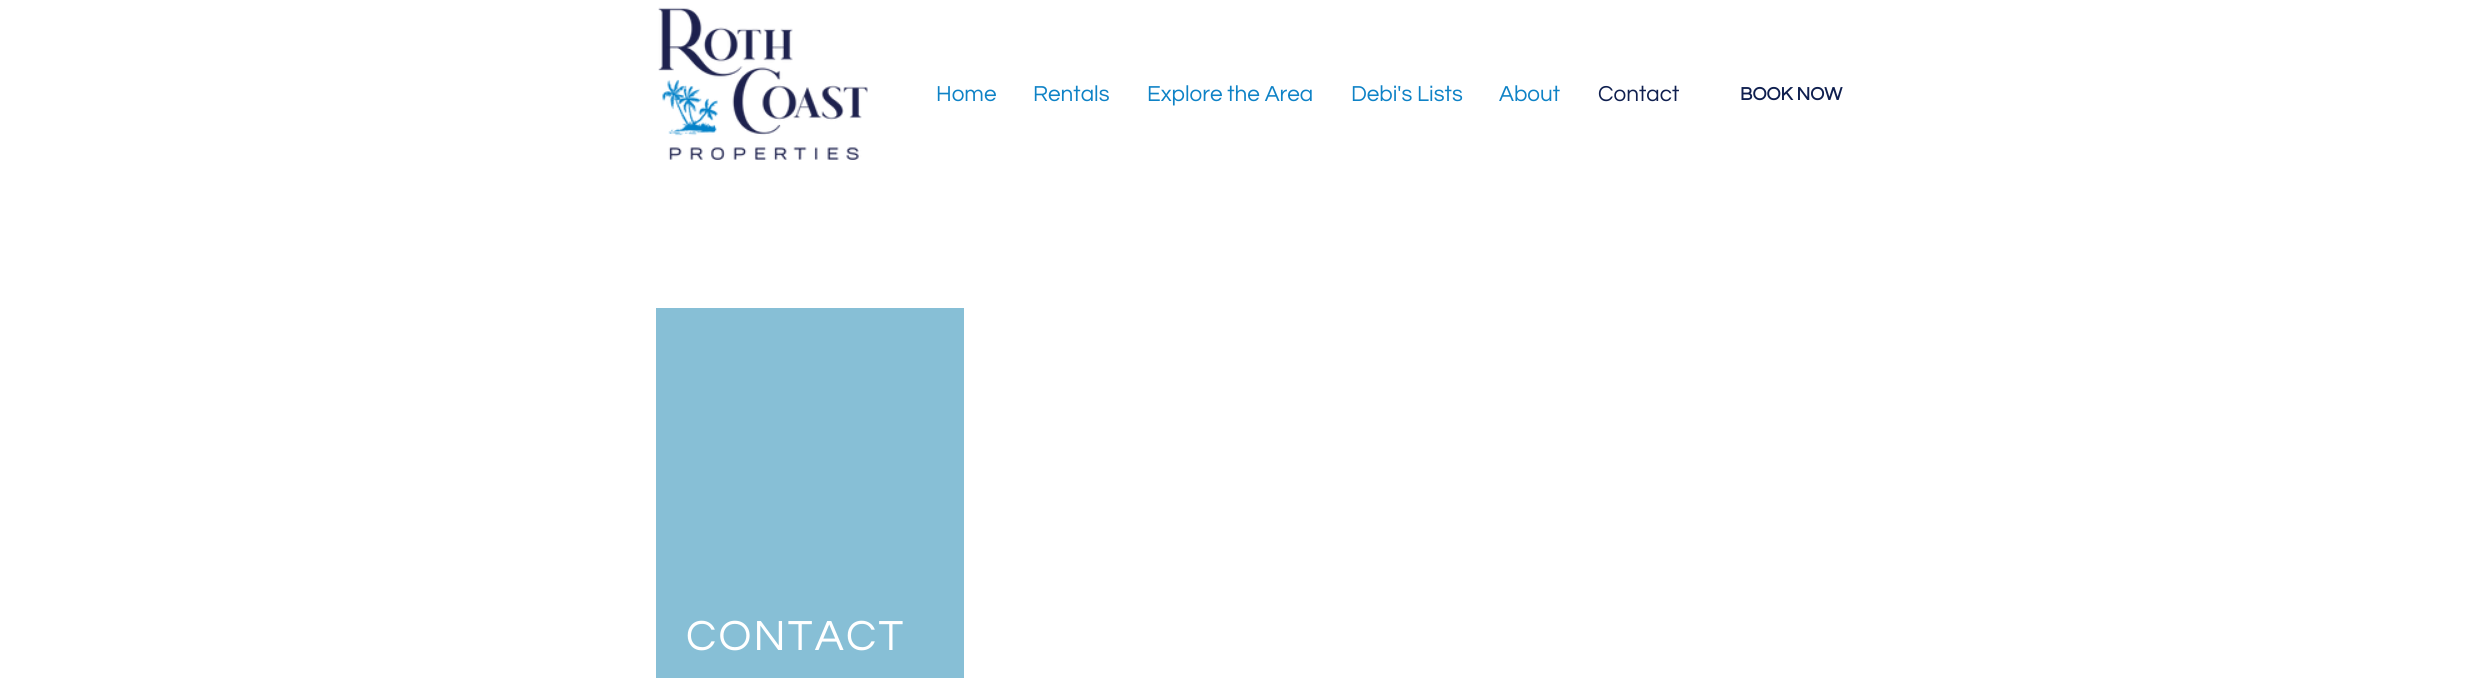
#include <cairo.h>
#include <math.h>
#include <stddef.h>

static cairo_t *ctx;

static void use_color(int r, int g, int b) {
    cairo_set_source_rgb(ctx, r / 255.0, g / 255.0, b / 255.0);
}

static void spaced_text(double x, double y, const char *s, double letter, double word) {
    cairo_move_to(ctx, x, y);
    while (*s) {
        char ch[5] = {0};
        int n = 0;
        do ch[n++] = *s++; while ((*s & 0xC0) == 0x80);
        cairo_show_text(ctx, ch);
        cairo_rel_move_to(ctx, letter + word * (*ch == ' '), 0);
    }
}

static void picture(const char *path, double x, double y, double w, double h) {
    cairo_surface_t *image = cairo_image_surface_create_from_png(path);
    cairo_save(ctx);
    cairo_set_source_surface(ctx, image, x, y);
    cairo_rectangle(ctx, x, y, w, h);
    cairo_fill(ctx);
    cairo_restore(ctx);
    cairo_surface_destroy(image);
}

int main(void) {
    cairo_surface_t *surface = cairo_image_surface_create(CAIRO_FORMAT_RGB24, 2486, 678);
    ctx = cairo_create(surface);
    cairo_font_options_t *options = cairo_font_options_create();
    cairo_font_options_set_hint_metrics(options, CAIRO_HINT_METRICS_OFF);
    cairo_font_options_set_hint_style(options, CAIRO_HINT_STYLE_NONE);
    cairo_set_font_options(ctx, options);
    cairo_set_miter_limit(ctx, 4);
    use_color(255, 255, 255);
    cairo_paint(ctx);
    picture("img1.png", 658, 7, 210, 153);
    cairo_select_font_face(ctx, "Questrial", CAIRO_FONT_SLANT_NORMAL, CAIRO_FONT_WEIGHT_NORMAL);
    cairo_set_font_size(ctx, 22.5);
    use_color(14, 130, 198);
    cairo_move_to(ctx, 936, 101);
    cairo_show_text(ctx, "Home");
    cairo_move_to(ctx, 1033, 101);
    cairo_show_text(ctx, "Rentals");
    cairo_move_to(ctx, 1147, 101);
    cairo_show_text(ctx, "Explore the Area");
    cairo_move_to(ctx, 1351, 101);
    cairo_show_text(ctx, "Debi's Lists");
    cairo_move_to(ctx, 1499, 101);
    cairo_show_text(ctx, "About");
    use_color(15, 31, 79);
    cairo_move_to(ctx, 1598, 101);
    cairo_show_text(ctx, "Contact");
    cairo_select_font_face(ctx, "Questrial", CAIRO_FONT_SLANT_NORMAL, CAIRO_FONT_WEIGHT_BOLD);
    cairo_set_font_size(ctx, 18.75);
    cairo_move_to(ctx, 1740, 100);
    cairo_show_text(ctx, "BOOK NOW");
    use_color(135, 191, 214);
    cairo_rectangle(ctx, 656, 308, 308, 370);
    cairo_fill(ctx);
    cairo_select_font_face(ctx, "Questrial", CAIRO_FONT_SLANT_NORMAL, CAIRO_FONT_WEIGHT_NORMAL);
    cairo_set_font_size(ctx, 43.75);
    use_color(255, 255, 255);
    spaced_text(686, 650, "CONTACT", 2.25, 0);
    cairo_surface_write_to_png(surface, "result.png");
    cairo_font_options_destroy(options);
    cairo_destroy(ctx);
    cairo_surface_destroy(surface);
    return 0;
}
